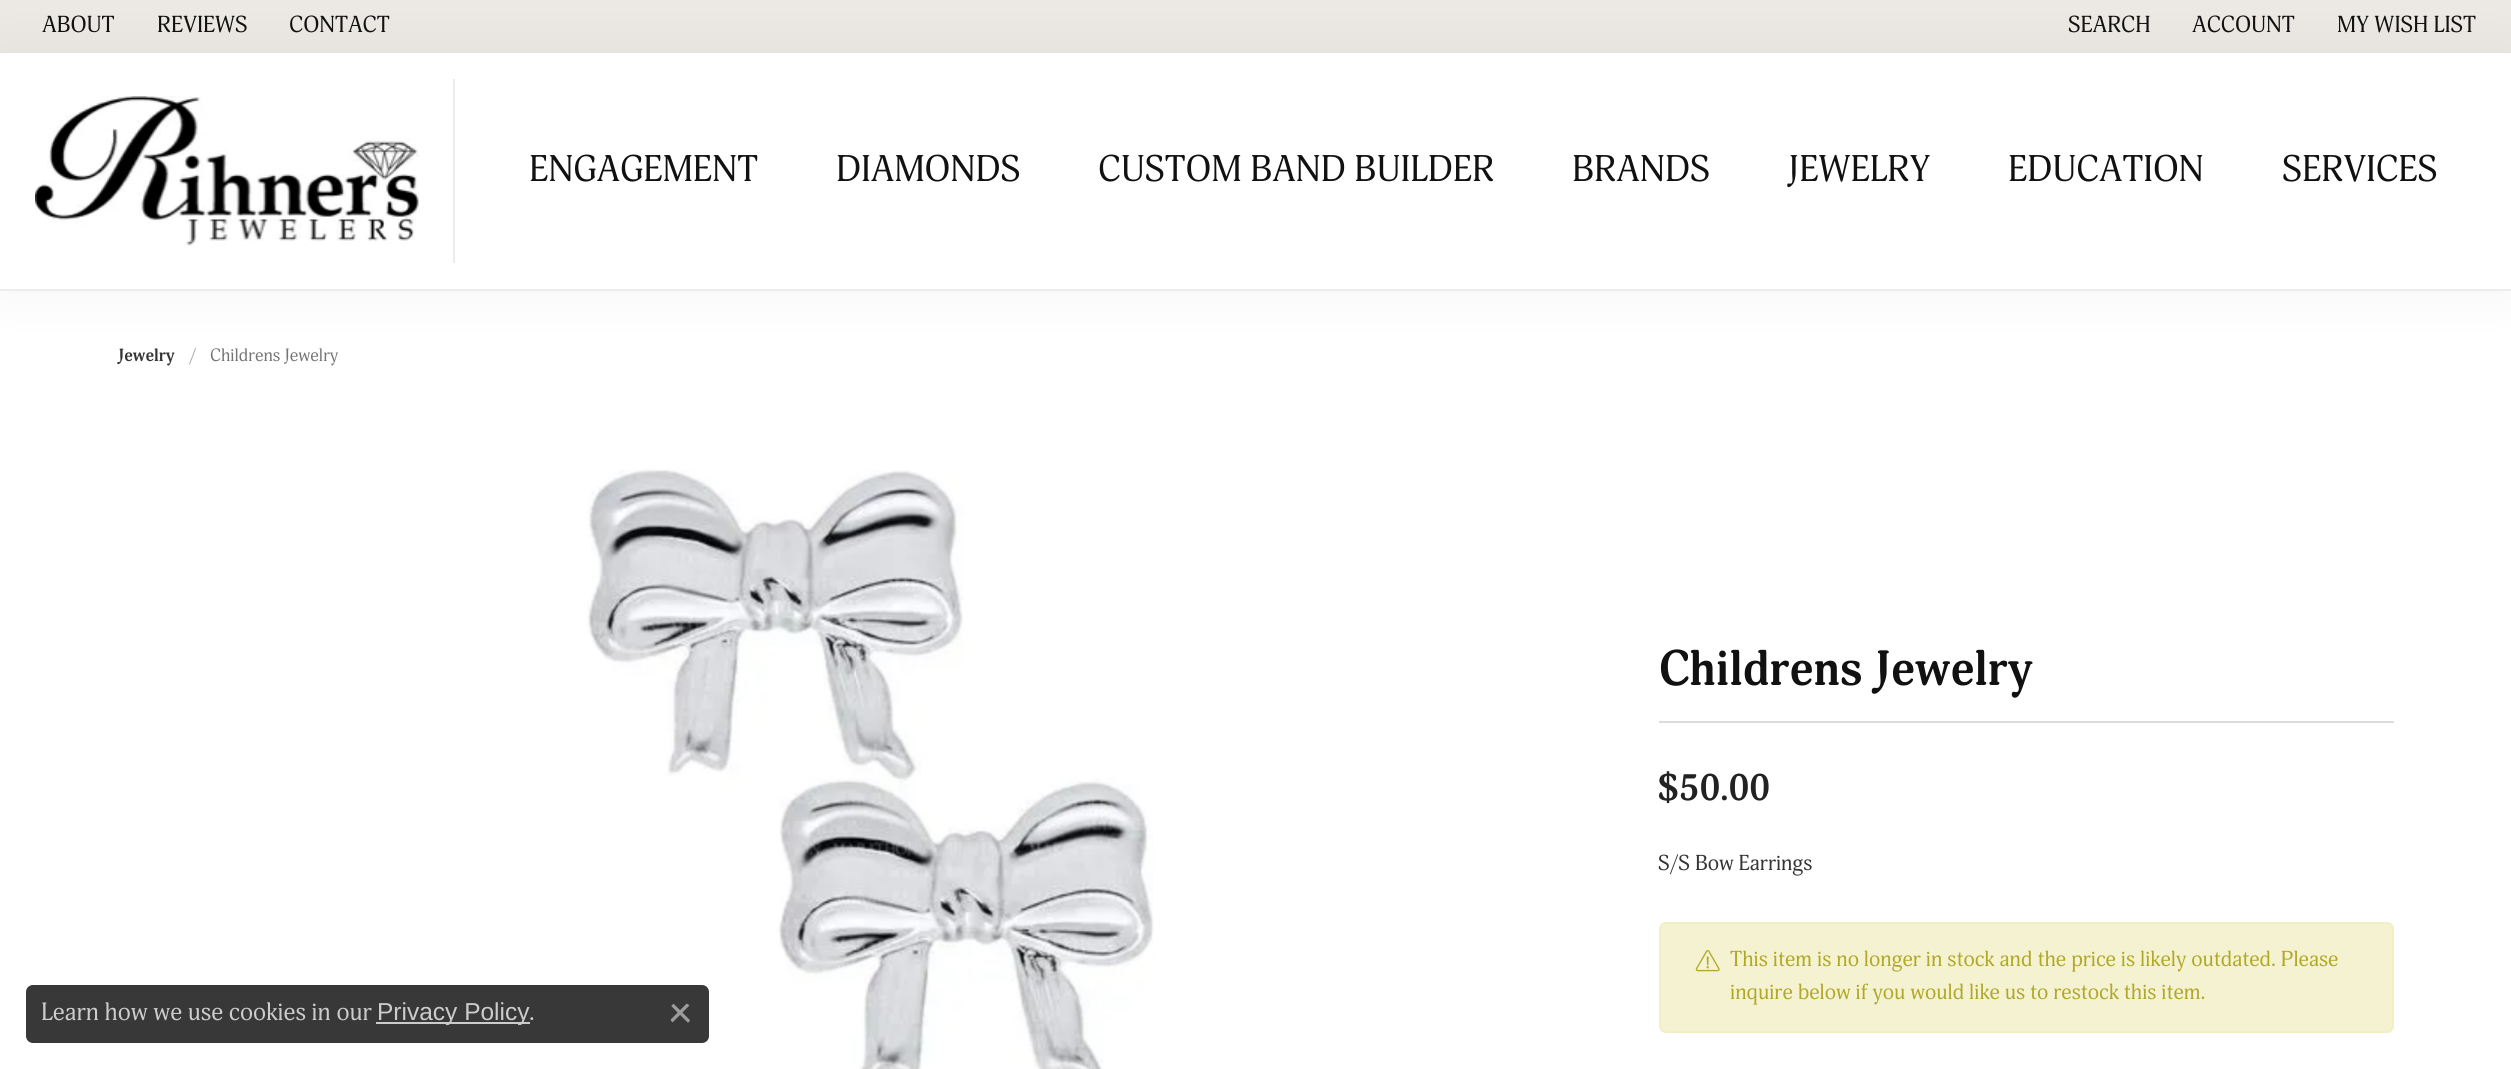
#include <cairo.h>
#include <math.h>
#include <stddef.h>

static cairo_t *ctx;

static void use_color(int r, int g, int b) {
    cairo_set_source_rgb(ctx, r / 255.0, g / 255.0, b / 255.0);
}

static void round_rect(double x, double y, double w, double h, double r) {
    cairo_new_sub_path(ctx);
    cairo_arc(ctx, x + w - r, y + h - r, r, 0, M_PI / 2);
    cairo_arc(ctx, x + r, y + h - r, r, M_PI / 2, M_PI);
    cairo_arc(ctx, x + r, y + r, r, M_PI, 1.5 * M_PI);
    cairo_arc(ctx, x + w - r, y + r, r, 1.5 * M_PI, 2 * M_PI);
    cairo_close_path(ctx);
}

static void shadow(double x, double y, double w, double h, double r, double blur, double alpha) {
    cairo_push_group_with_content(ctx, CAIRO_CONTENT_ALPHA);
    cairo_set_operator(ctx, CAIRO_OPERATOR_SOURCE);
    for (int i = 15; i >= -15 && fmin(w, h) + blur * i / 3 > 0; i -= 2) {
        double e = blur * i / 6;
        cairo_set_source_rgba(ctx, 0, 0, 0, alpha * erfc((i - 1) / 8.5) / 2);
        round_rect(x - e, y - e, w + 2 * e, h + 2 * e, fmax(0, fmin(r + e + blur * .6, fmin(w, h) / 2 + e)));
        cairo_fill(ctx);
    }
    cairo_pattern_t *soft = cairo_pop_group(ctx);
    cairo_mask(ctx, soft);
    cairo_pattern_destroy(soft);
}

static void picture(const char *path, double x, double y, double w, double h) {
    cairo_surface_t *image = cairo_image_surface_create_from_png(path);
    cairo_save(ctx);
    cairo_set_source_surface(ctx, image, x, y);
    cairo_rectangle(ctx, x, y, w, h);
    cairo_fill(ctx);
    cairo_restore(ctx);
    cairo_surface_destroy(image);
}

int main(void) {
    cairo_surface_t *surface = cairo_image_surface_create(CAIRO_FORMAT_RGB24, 2511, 1069);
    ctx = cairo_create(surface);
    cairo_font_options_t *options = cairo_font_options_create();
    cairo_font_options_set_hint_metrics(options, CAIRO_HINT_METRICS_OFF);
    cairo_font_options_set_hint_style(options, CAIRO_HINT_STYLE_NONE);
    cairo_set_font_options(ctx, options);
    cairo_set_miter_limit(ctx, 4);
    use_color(236, 233, 228);
    cairo_paint(ctx);
    cairo_select_font_face(ctx, "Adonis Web", CAIRO_FONT_SLANT_NORMAL, CAIRO_FONT_WEIGHT_NORMAL);
    cairo_set_font_size(ctx, 22.75);
    use_color(17, 17, 17);
    cairo_move_to(ctx, 42, 32);
    cairo_show_text(ctx, "ABOUT");
    cairo_move_to(ctx, 157, 32);
    cairo_show_text(ctx, "REVIEWS");
    cairo_move_to(ctx, 289, 32);
    cairo_show_text(ctx, "CONTACT");
    cairo_move_to(ctx, 2068, 32);
    cairo_show_text(ctx, "SEARCH");
    cairo_move_to(ctx, 2192, 32);
    cairo_show_text(ctx, "ACCOUNT");
    cairo_move_to(ctx, 2337, 32);
    cairo_show_text(ctx, "MY WISH LIST");
    use_color(255, 255, 255);
    cairo_rectangle(ctx, 0, 291, 2511, 778);
    cairo_fill(ctx);
    use_color(0, 0, 0);
    shadow(0, 53, 2511, 238, 0, 26, 0.05);
    use_color(255, 255, 255);
    cairo_rectangle(ctx, 0, 53, 2511, 236);
    cairo_fill(ctx);
    use_color(236, 236, 236);
    cairo_rectangle(ctx, 0, 289, 2511, 2);
    cairo_fill(ctx);
    cairo_rectangle(ctx, 453, 79, 2, 184);
    cairo_fill(ctx);
    picture("img1.png", 35, 96, 384, 150);
    cairo_set_font_size(ctx, 36.4);
    use_color(17, 17, 17);
    cairo_move_to(ctx, 529, 181);
    cairo_show_text(ctx, "ENGAGEMENT");
    cairo_move_to(ctx, 836, 181);
    cairo_show_text(ctx, "DIAMONDS");
    cairo_move_to(ctx, 1098, 181);
    cairo_show_text(ctx, "CUSTOM BAND BUILDER");
    cairo_move_to(ctx, 1572, 181);
    cairo_show_text(ctx, "BRANDS");
    cairo_move_to(ctx, 1788, 181);
    cairo_show_text(ctx, "JEWELRY");
    cairo_move_to(ctx, 2008, 181);
    cairo_show_text(ctx, "EDUCATION");
    cairo_move_to(ctx, 2282, 181);
    cairo_show_text(ctx, "SERVICES");
    cairo_select_font_face(ctx, "Adonis Web", CAIRO_FONT_SLANT_NORMAL, CAIRO_FONT_WEIGHT_BOLD);
    cairo_set_font_size(ctx, 17.5);
    use_color(53, 53, 53);
    cairo_move_to(ctx, 118, 361);
    cairo_show_text(ctx, "Jewelry");
    cairo_select_font_face(ctx, "Adonis Web", CAIRO_FONT_SLANT_NORMAL, CAIRO_FONT_WEIGHT_NORMAL);
    use_color(154, 153, 149);
    cairo_move_to(ctx, 189, 361);
    cairo_show_text(ctx, "/");
    use_color(117, 117, 117);
    cairo_move_to(ctx, 210, 361);
    cairo_show_text(ctx, "Childrens Jewelry");
    picture("img2.png", 587, 469, 567, 600);
    cairo_select_font_face(ctx, "Adonis Web", CAIRO_FONT_SLANT_NORMAL, CAIRO_FONT_WEIGHT_BOLD);
    cairo_set_font_size(ctx, 49);
    use_color(17, 17, 17);
    cairo_move_to(ctx, 1658, 685);
    cairo_show_text(ctx, "Childrens Jewelry");
    use_color(220, 220, 219);
    cairo_rectangle(ctx, 1659, 721, 735, 2);
    cairo_fill(ctx);
    cairo_set_font_size(ctx, 36.4);
    use_color(34, 34, 34);
    cairo_move_to(ctx, 1658, 800);
    cairo_show_text(ctx, "$50.00");
    cairo_select_font_face(ctx, "Adonis Web", CAIRO_FONT_SLANT_NORMAL, CAIRO_FONT_WEIGHT_NORMAL);
    cairo_set_font_size(ctx, 21.25);
    use_color(53, 53, 53);
    cairo_move_to(ctx, 1658, 870);
    cairo_show_text(ctx, "S/S Bow Earrings");
    use_color(244, 242, 208);
    round_rect(1659, 922, 735, 111, 7);
    cairo_fill(ctx);
    round_rect(1660, 923, 733, 109, 6);
    cairo_set_source_rgba(ctx, 0.859, 0.831, 0.388, 0.1);
    cairo_stroke(ctx);
    picture("img3.png", 1695, 950, 25, 22);
    use_color(176, 168, 41);
    cairo_move_to(ctx, 1730, 966);
    cairo_show_text(ctx, "This item is no longer in stock and the price is likely outdated. Please");
    cairo_move_to(ctx, 1730, 999);
    cairo_show_text(ctx, "inquire below if you would like us to restock this item.");
    use_color(56, 56, 56);
    round_rect(26, 985, 683, 58, 7);
    cairo_fill(ctx);
    cairo_set_font_size(ctx, 24.5);
    use_color(204, 204, 204);
    cairo_move_to(ctx, 41, 1020);
    cairo_show_text(ctx, "Learn how we use cookies in our");
    cairo_rectangle(ctx, 376, 1022, 154, 2);
    cairo_fill(ctx);
    cairo_select_font_face(ctx, "Liberation Sans", CAIRO_FONT_SLANT_NORMAL, CAIRO_FONT_WEIGHT_NORMAL);
    cairo_move_to(ctx, 377, 1020);
    cairo_show_text(ctx, "Privacy Policy");
    cairo_select_font_face(ctx, "Adonis Web", CAIRO_FONT_SLANT_NORMAL, CAIRO_FONT_WEIGHT_NORMAL);
    cairo_move_to(ctx, 529, 1020);
    cairo_show_text(ctx, ".");
    picture("img4.png", 670, 1003, 20, 20);
    cairo_surface_write_to_png(surface, "result.png");
    cairo_font_options_destroy(options);
    cairo_destroy(ctx);
    cairo_surface_destroy(surface);
    return 0;
}
